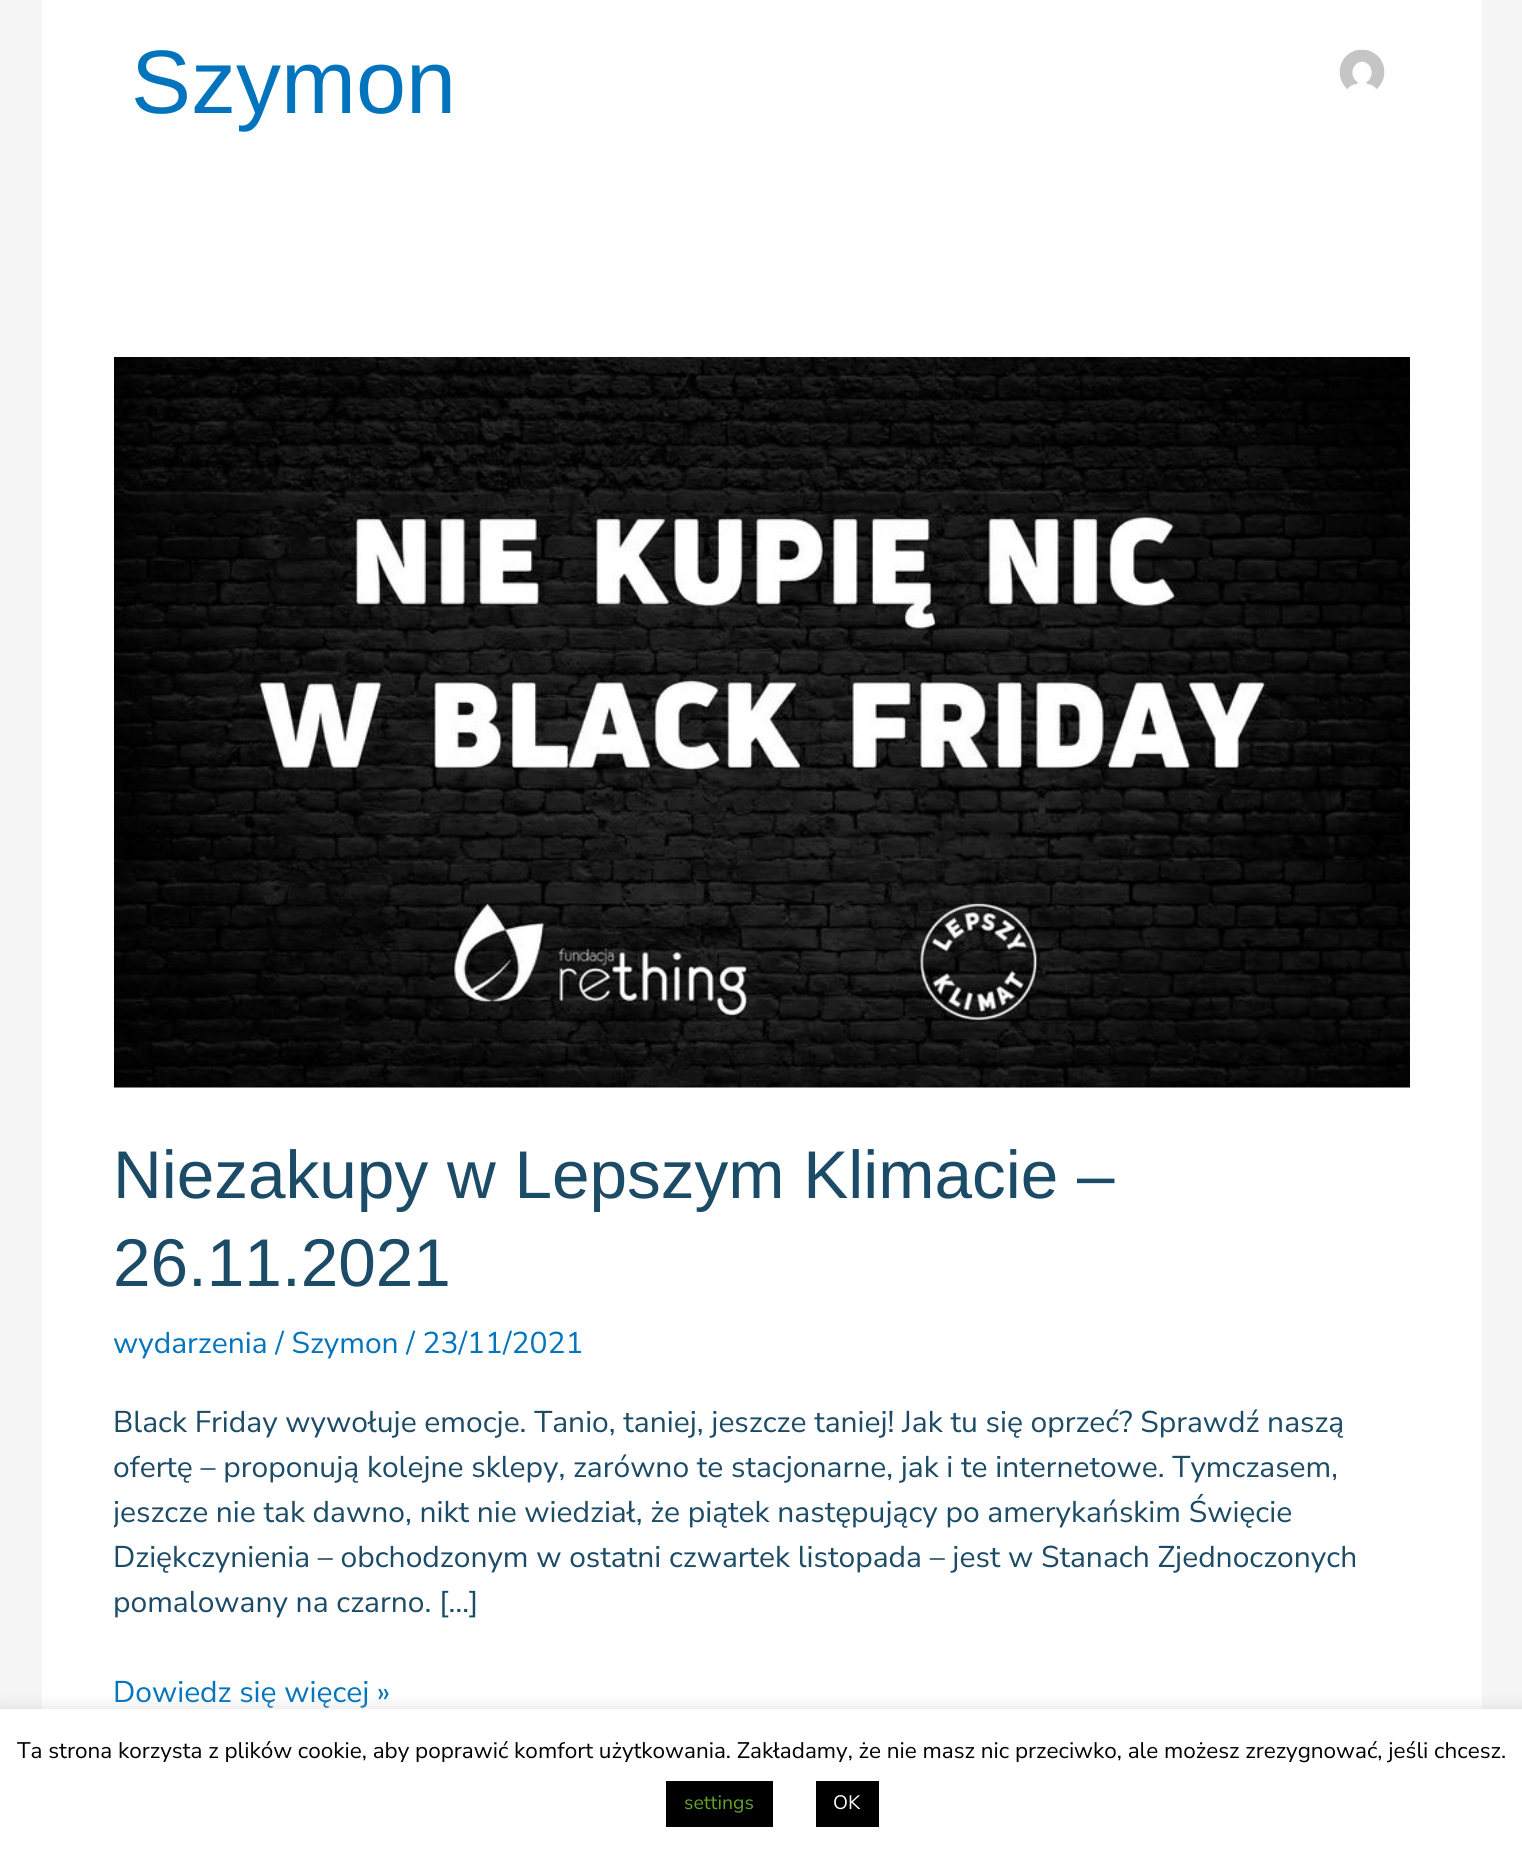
#include <cairo.h>
#include <math.h>
#include <stddef.h>

static cairo_t *ctx;

static void use_color(int r, int g, int b) {
    cairo_set_source_rgb(ctx, r / 255.0, g / 255.0, b / 255.0);
}

static void round_rect(double x, double y, double w, double h, double r) {
    cairo_new_sub_path(ctx);
    cairo_arc(ctx, x + w - r, y + h - r, r, 0, M_PI / 2);
    cairo_arc(ctx, x + r, y + h - r, r, M_PI / 2, M_PI);
    cairo_arc(ctx, x + r, y + r, r, M_PI, 1.5 * M_PI);
    cairo_arc(ctx, x + w - r, y + r, r, 1.5 * M_PI, 2 * M_PI);
    cairo_close_path(ctx);
}

static void shadow(double x, double y, double w, double h, double r, double blur, double alpha) {
    cairo_push_group_with_content(ctx, CAIRO_CONTENT_ALPHA);
    cairo_set_operator(ctx, CAIRO_OPERATOR_SOURCE);
    for (int i = 15; i >= -15 && fmin(w, h) + blur * i / 3 > 0; i -= 2) {
        double e = blur * i / 6;
        cairo_set_source_rgba(ctx, 0, 0, 0, alpha * erfc((i - 1) / 8.5) / 2);
        round_rect(x - e, y - e, w + 2 * e, h + 2 * e, fmax(0, fmin(r + e + blur * .6, fmin(w, h) / 2 + e)));
        cairo_fill(ctx);
    }
    cairo_pattern_t *soft = cairo_pop_group(ctx);
    cairo_mask(ctx, soft);
    cairo_pattern_destroy(soft);
}

static void picture(const char *path, double x, double y, double w, double h) {
    cairo_surface_t *image = cairo_image_surface_create_from_png(path);
    cairo_save(ctx);
    cairo_set_source_surface(ctx, image, x, y);
    cairo_rectangle(ctx, x, y, w, h);
    cairo_fill(ctx);
    cairo_restore(ctx);
    cairo_surface_destroy(image);
}

int main(void) {
    cairo_surface_t *surface = cairo_image_surface_create(CAIRO_FORMAT_RGB24, 1522, 1852);
    ctx = cairo_create(surface);
    cairo_font_options_t *options = cairo_font_options_create();
    cairo_font_options_set_hint_metrics(options, CAIRO_HINT_METRICS_OFF);
    cairo_font_options_set_hint_style(options, CAIRO_HINT_STYLE_NONE);
    cairo_set_font_options(ctx, options);
    cairo_set_miter_limit(ctx, 4);
    use_color(245, 245, 245);
    cairo_paint(ctx);
    use_color(255, 255, 255);
    cairo_rectangle(ctx, 42, 0, 1440, 1709);
    cairo_fill(ctx);
    cairo_select_font_face(ctx, "Liberation Sans", CAIRO_FONT_SLANT_NORMAL, CAIRO_FONT_WEIGHT_NORMAL);
    cairo_set_font_size(ctx, 90);
    use_color(2, 116, 190);
    cairo_move_to(ctx, 131, 113);
    cairo_show_text(ctx, "Szymon");
    picture("img1.png", 1339, 49, 46, 41);
    picture("img2.png", 114, 357, 1296, 731);
    cairo_set_font_size(ctx, 67.5);
    use_color(27, 75, 102);
    cairo_move_to(ctx, 113, 1198);
    cairo_show_text(ctx, "Niezakupy w Lepszym Klimacie –");
    cairo_move_to(ctx, 113, 1286);
    cairo_show_text(ctx, "26.11.2021");
    cairo_select_font_face(ctx, "Nunito Sans ExtraLight", CAIRO_FONT_SLANT_NORMAL, CAIRO_FONT_WEIGHT_NORMAL);
    cairo_set_font_size(ctx, 30);
    use_color(2, 116, 190);
    cairo_move_to(ctx, 113, 1353);
    cairo_show_text(ctx, "wydarzenia / Szymon / 23/11/2021");
    use_color(27, 75, 102);
    cairo_move_to(ctx, 113, 1432);
    cairo_show_text(ctx, "Black Friday wywołuje emocje. Tanio, taniej, jeszcze taniej! Jak tu się oprzeć? Sprawdź naszą");
    cairo_move_to(ctx, 113, 1477);
    cairo_show_text(ctx, "ofertę – proponują kolejne sklepy, zarówno te stacjonarne, jak i te internetowe. Tymczasem,");
    cairo_save(ctx);
    cairo_rectangle(ctx, 114, 357, 1296, 1383);
    cairo_clip(ctx);
    cairo_move_to(ctx, 113, 1522);
    cairo_show_text(ctx, "jeszcze nie tak dawno, nikt nie wiedział, że piątek następujący po amerykańskim Święcie");
    cairo_restore(ctx);
    cairo_move_to(ctx, 113, 1567);
    cairo_show_text(ctx, "Dziękczynienia – obchodzonym w ostatni czwartek listopada – jest w Stanach Zjednoczonych");
    cairo_move_to(ctx, 113, 1612);
    cairo_show_text(ctx, "pomalowany na czarno. […]");
    use_color(2, 116, 190);
    cairo_move_to(ctx, 113, 1702);
    cairo_show_text(ctx, "Dowiedz się więcej »");
    use_color(172, 171, 171);
    shadow(0, 1707, 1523, 144, 0, 7.5, 0.3);
    use_color(255, 255, 255);
    cairo_rectangle(ctx, 0, 1709, 1522, 143);
    cairo_fill(ctx);
    cairo_set_font_size(ctx, 22.5);
    use_color(0, 0, 0);
    cairo_move_to(ctx, 17, 1758);
    cairo_show_text(ctx, "Ta strona korzysta z plików cookie, aby poprawić komfort użytkowania. Zakładamy, że nie masz nic przeciwko, ale możesz zrezygnować, jeśli chcesz.");
    cairo_rectangle(ctx, 666, 1781, 107, 46);
    cairo_fill(ctx);
    cairo_set_font_size(ctx, 19.5);
    use_color(98, 163, 41);
    cairo_move_to(ctx, 684, 1809);
    cairo_show_text(ctx, "settings");
    use_color(0, 0, 0);
    cairo_rectangle(ctx, 816, 1781, 63, 46);
    cairo_fill(ctx);
    use_color(255, 255, 255);
    cairo_move_to(ctx, 833, 1809);
    cairo_show_text(ctx, "OK");
    cairo_surface_write_to_png(surface, "result.png");
    cairo_font_options_destroy(options);
    cairo_destroy(ctx);
    cairo_surface_destroy(surface);
    return 0;
}
